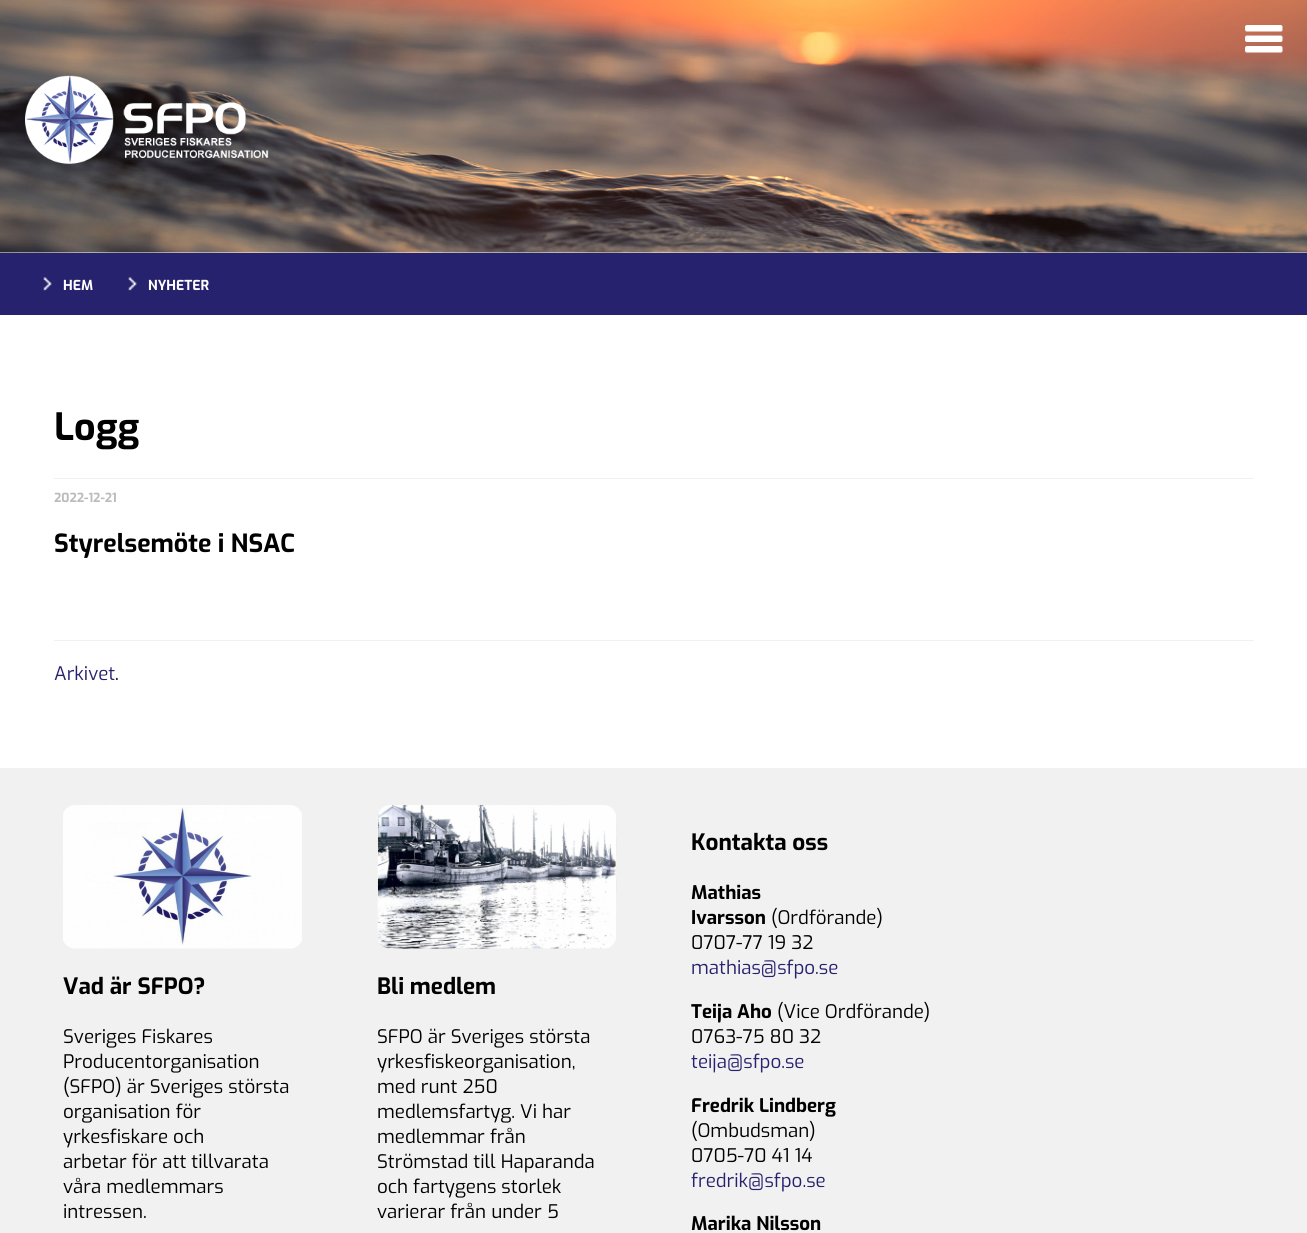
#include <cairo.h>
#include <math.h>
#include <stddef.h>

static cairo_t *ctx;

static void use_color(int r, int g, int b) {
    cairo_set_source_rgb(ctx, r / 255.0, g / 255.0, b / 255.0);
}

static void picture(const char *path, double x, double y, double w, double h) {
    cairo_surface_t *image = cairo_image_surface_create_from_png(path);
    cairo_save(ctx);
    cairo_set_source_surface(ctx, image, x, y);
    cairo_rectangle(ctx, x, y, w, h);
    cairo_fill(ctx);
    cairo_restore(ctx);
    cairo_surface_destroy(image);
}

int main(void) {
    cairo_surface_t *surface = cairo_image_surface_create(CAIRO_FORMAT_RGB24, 1307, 1233);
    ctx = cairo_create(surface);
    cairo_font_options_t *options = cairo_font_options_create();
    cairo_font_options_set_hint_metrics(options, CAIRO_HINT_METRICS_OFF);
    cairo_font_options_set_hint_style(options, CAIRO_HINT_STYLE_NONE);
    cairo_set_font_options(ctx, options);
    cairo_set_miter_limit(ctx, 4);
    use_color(255, 255, 255);
    cairo_paint(ctx);
    picture("img1.png", 0, 0, 1307, 253);
    picture("img2.png", 25, 75, 244, 89);
    picture("img3.png", 1245, 25, 38, 28);
    use_color(39, 34, 109);
    cairo_rectangle(ctx, 0, 253, 1307, 62);
    cairo_fill(ctx);
    picture("img4.png", 43, 277, 9, 14);
    cairo_select_font_face(ctx, "Exo", CAIRO_FONT_SLANT_NORMAL, CAIRO_FONT_WEIGHT_BOLD);
    cairo_set_font_size(ctx, 13.75);
    use_color(255, 255, 255);
    cairo_move_to(ctx, 63, 290);
    cairo_show_text(ctx, "HEM");
    picture("img4.png", 128, 277, 9, 14);
    cairo_move_to(ctx, 148, 290);
    cairo_show_text(ctx, "NYHETER");
    cairo_set_font_size(ctx, 37.5);
    use_color(0, 0, 0);
    cairo_move_to(ctx, 54, 440);
    cairo_show_text(ctx, "Logg");
    use_color(241, 241, 241);
    cairo_rectangle(ctx, 54, 478, 1200, 1);
    cairo_fill(ctx);
    cairo_set_font_size(ctx, 12.5);
    use_color(187, 187, 187);
    cairo_move_to(ctx, 54, 502);
    cairo_show_text(ctx, "2022-12-21");
    cairo_set_font_size(ctx, 25);
    use_color(0, 0, 0);
    cairo_move_to(ctx, 54, 552);
    cairo_show_text(ctx, "Styrelsemöte i NSAC");
    use_color(241, 241, 241);
    cairo_rectangle(ctx, 54, 640, 1200, 1);
    cairo_fill(ctx);
    cairo_select_font_face(ctx, "Exo", CAIRO_FONT_SLANT_NORMAL, CAIRO_FONT_WEIGHT_NORMAL);
    cairo_set_font_size(ctx, 18.75);
    use_color(39, 34, 109);
    cairo_move_to(ctx, 54, 680);
    cairo_show_text(ctx, "Arkivet");
    use_color(0, 0, 0);
    cairo_move_to(ctx, 115, 680);
    cairo_show_text(ctx, ".");
    use_color(241, 241, 241);
    cairo_rectangle(ctx, 0, 768, 1307, 465);
    cairo_fill(ctx);
    picture("img5.png", 63, 805, 239, 144);
    cairo_select_font_face(ctx, "Exo", CAIRO_FONT_SLANT_NORMAL, CAIRO_FONT_WEIGHT_BOLD);
    cairo_set_font_size(ctx, 22.5);
    use_color(0, 0, 0);
    cairo_move_to(ctx, 63, 994);
    cairo_show_text(ctx, "Vad är SFPO?");
    cairo_select_font_face(ctx, "Exo", CAIRO_FONT_SLANT_NORMAL, CAIRO_FONT_WEIGHT_NORMAL);
    cairo_set_font_size(ctx, 18.75);
    cairo_move_to(ctx, 63, 1043);
    cairo_show_text(ctx, "Sveriges Fiskares");
    cairo_move_to(ctx, 63, 1068);
    cairo_show_text(ctx, "Producentorganisation");
    cairo_move_to(ctx, 63, 1093);
    cairo_show_text(ctx, "(SFPO) är Sveriges största");
    cairo_move_to(ctx, 63, 1118);
    cairo_show_text(ctx, "organisation för");
    cairo_move_to(ctx, 63, 1143);
    cairo_show_text(ctx, "yrkesfiskare och");
    cairo_move_to(ctx, 63, 1168);
    cairo_show_text(ctx, "arbetar för att tillvarata");
    cairo_move_to(ctx, 63, 1193);
    cairo_show_text(ctx, "våra medlemmars");
    cairo_move_to(ctx, 63, 1218);
    cairo_show_text(ctx, "intressen.");
    picture("img6.png", 377, 805, 240, 144);
    cairo_select_font_face(ctx, "Exo", CAIRO_FONT_SLANT_NORMAL, CAIRO_FONT_WEIGHT_BOLD);
    cairo_set_font_size(ctx, 22.5);
    cairo_move_to(ctx, 377, 994);
    cairo_show_text(ctx, "Bli medlem");
    cairo_select_font_face(ctx, "Exo", CAIRO_FONT_SLANT_NORMAL, CAIRO_FONT_WEIGHT_NORMAL);
    cairo_set_font_size(ctx, 18.75);
    cairo_move_to(ctx, 377, 1043);
    cairo_show_text(ctx, "SFPO är Sveriges största");
    cairo_move_to(ctx, 377, 1068);
    cairo_show_text(ctx, "yrkesfiskeorganisation,");
    cairo_move_to(ctx, 377, 1093);
    cairo_show_text(ctx, "med runt 250");
    cairo_move_to(ctx, 377, 1118);
    cairo_show_text(ctx, "medlemsfartyg. Vi har");
    cairo_move_to(ctx, 377, 1143);
    cairo_show_text(ctx, "medlemmar från");
    cairo_move_to(ctx, 377, 1168);
    cairo_show_text(ctx, "Strömstad till Haparanda");
    cairo_move_to(ctx, 377, 1193);
    cairo_show_text(ctx, "och fartygens storlek");
    cairo_move_to(ctx, 377, 1218);
    cairo_show_text(ctx, "varierar från under 5");
    cairo_select_font_face(ctx, "Exo", CAIRO_FONT_SLANT_NORMAL, CAIRO_FONT_WEIGHT_BOLD);
    cairo_set_font_size(ctx, 22.5);
    cairo_move_to(ctx, 691, 850);
    cairo_show_text(ctx, "Kontakta oss");
    cairo_set_font_size(ctx, 18.75);
    cairo_move_to(ctx, 691, 899);
    cairo_show_text(ctx, "Mathias");
    cairo_move_to(ctx, 691, 924);
    cairo_show_text(ctx, "Ivarsson");
    cairo_select_font_face(ctx, "Exo", CAIRO_FONT_SLANT_NORMAL, CAIRO_FONT_WEIGHT_NORMAL);
    cairo_move_to(ctx, 771, 924);
    cairo_show_text(ctx, "(Ordförande)");
    cairo_move_to(ctx, 691, 949);
    cairo_show_text(ctx, "0707-77 19 32");
    use_color(39, 34, 109);
    cairo_move_to(ctx, 691, 974);
    cairo_show_text(ctx, "mathias@sfpo.se");
    cairo_select_font_face(ctx, "Exo", CAIRO_FONT_SLANT_NORMAL, CAIRO_FONT_WEIGHT_BOLD);
    use_color(0, 0, 0);
    cairo_move_to(ctx, 691, 1018);
    cairo_show_text(ctx, "Teija Aho");
    cairo_select_font_face(ctx, "Exo", CAIRO_FONT_SLANT_NORMAL, CAIRO_FONT_WEIGHT_NORMAL);
    cairo_move_to(ctx, 777, 1018);
    cairo_show_text(ctx, "(Vice Ordförande)");
    cairo_move_to(ctx, 691, 1043);
    cairo_show_text(ctx, "0763-75 80 32");
    use_color(39, 34, 109);
    cairo_move_to(ctx, 691, 1068);
    cairo_show_text(ctx, "teija@sfpo.se");
    cairo_select_font_face(ctx, "Exo", CAIRO_FONT_SLANT_NORMAL, CAIRO_FONT_WEIGHT_BOLD);
    use_color(0, 0, 0);
    cairo_move_to(ctx, 691, 1112);
    cairo_show_text(ctx, "Fredrik Lindberg");
    cairo_select_font_face(ctx, "Exo", CAIRO_FONT_SLANT_NORMAL, CAIRO_FONT_WEIGHT_NORMAL);
    cairo_move_to(ctx, 691, 1137);
    cairo_show_text(ctx, "(Ombudsman)");
    cairo_move_to(ctx, 691, 1162);
    cairo_show_text(ctx, "0705-70 41 14");
    use_color(39, 34, 109);
    cairo_move_to(ctx, 691, 1187);
    cairo_show_text(ctx, "fredrik@sfpo.se");
    cairo_select_font_face(ctx, "Exo", CAIRO_FONT_SLANT_NORMAL, CAIRO_FONT_WEIGHT_BOLD);
    use_color(0, 0, 0);
    cairo_move_to(ctx, 691, 1230);
    cairo_show_text(ctx, "Marika Nilsson");
    cairo_surface_write_to_png(surface, "result.png");
    cairo_font_options_destroy(options);
    cairo_destroy(ctx);
    cairo_surface_destroy(surface);
    return 0;
}
